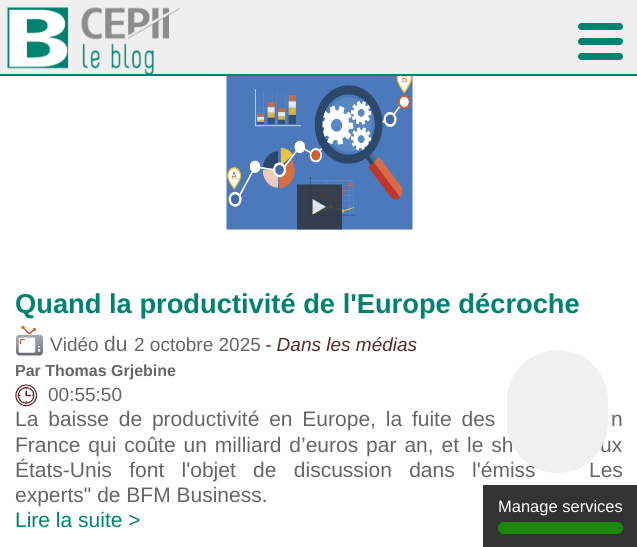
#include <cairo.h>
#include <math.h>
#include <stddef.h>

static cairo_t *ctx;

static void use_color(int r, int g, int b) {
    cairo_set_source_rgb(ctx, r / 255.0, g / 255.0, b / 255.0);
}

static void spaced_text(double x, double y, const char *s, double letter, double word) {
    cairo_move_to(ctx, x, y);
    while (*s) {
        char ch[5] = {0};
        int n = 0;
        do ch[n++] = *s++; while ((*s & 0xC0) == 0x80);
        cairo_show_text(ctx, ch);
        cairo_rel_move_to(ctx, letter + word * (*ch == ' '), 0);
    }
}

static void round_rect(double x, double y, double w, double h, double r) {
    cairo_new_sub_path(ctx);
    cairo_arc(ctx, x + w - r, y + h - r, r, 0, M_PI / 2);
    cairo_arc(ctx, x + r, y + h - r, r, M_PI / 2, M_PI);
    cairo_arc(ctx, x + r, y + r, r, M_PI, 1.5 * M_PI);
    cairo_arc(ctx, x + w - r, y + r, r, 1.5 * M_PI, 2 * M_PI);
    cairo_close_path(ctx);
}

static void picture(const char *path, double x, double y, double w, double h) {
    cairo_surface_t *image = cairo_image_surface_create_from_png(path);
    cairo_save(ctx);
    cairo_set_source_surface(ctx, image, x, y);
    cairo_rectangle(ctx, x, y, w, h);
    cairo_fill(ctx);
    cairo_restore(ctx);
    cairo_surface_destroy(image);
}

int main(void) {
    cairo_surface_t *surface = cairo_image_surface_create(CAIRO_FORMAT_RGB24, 637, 547);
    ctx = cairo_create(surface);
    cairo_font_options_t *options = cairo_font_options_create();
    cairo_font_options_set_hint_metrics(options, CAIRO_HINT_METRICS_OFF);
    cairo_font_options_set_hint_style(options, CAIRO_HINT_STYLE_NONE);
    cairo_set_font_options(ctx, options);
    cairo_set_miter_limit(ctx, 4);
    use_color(255, 255, 255);
    cairo_paint(ctx);
    use_color(239, 239, 239);
    cairo_rectangle(ctx, 0, 0, 637, 74);
    cairo_fill(ctx);
    use_color(0, 130, 113);
    cairo_rectangle(ctx, 0, 74, 637, 2);
    cairo_fill(ctx);
    picture("img1.png", 7, 7, 173, 67);
    round_rect(578, 23, 45, 7, 3.5);
    cairo_fill(ctx);
    round_rect(578, 38, 45, 7, 3.5);
    cairo_fill(ctx);
    round_rect(578, 53, 45, 7, 3.5);
    cairo_fill(ctx);
    picture("img2.png", 226, 76, 187, 154);
    picture("img3.png", 297, 184, 45, 46);
    cairo_select_font_face(ctx, "Liberation Sans", CAIRO_FONT_SLANT_NORMAL, CAIRO_FONT_WEIGHT_BOLD);
    cairo_set_font_size(ctx, 27.3);
    cairo_move_to(ctx, 15, 313);
    cairo_show_text(ctx, "Quand la productivité de l'Europe décroche");
    picture("img4.png", 16, 325, 27, 32);
    cairo_select_font_face(ctx, "Liberation Sans", CAIRO_FONT_SLANT_NORMAL, CAIRO_FONT_WEIGHT_NORMAL);
    cairo_set_font_size(ctx, 19);
    use_color(102, 102, 102);
    cairo_move_to(ctx, 50, 351);
    cairo_show_text(ctx, "Vidéo");
    cairo_set_font_size(ctx, 21);
    cairo_move_to(ctx, 104, 351);
    cairo_show_text(ctx, "du");
    cairo_set_font_size(ctx, 19);
    cairo_move_to(ctx, 134, 351);
    cairo_show_text(ctx, "2 octobre 2025");
    cairo_select_font_face(ctx, "Liberation Sans", CAIRO_FONT_SLANT_ITALIC, CAIRO_FONT_WEIGHT_NORMAL);
    use_color(90, 40, 41);
    cairo_move_to(ctx, 265, 351);
    cairo_show_text(ctx, "- Dans les médias");
    cairo_select_font_face(ctx, "Liberation Sans", CAIRO_FONT_SLANT_NORMAL, CAIRO_FONT_WEIGHT_BOLD);
    cairo_set_font_size(ctx, 16);
    use_color(102, 102, 102);
    cairo_move_to(ctx, 15, 376);
    cairo_show_text(ctx, "Par Thomas Grjebine");
    picture("img5.png", 15, 384, 22, 23);
    cairo_select_font_face(ctx, "Liberation Sans", CAIRO_FONT_SLANT_NORMAL, CAIRO_FONT_WEIGHT_NORMAL);
    cairo_set_font_size(ctx, 19);
    cairo_move_to(ctx, 48, 401);
    cairo_show_text(ctx, "00:55:50");
    cairo_set_font_size(ctx, 21);
    spaced_text(15, 426, "La baisse de productivité en Europe, la fuite des", 0, 4);
    spaced_text(611, 426, "n", 0, 4);
    spaced_text(15, 452, "France qui coûte un milliard d’euros par an, et le sh", 0, 2.1);
    spaced_text(600, 452, "ux", 0, 2.1);
    spaced_text(15, 477, "États-Unis font l'objet de discussion dans l'émiss", 0, 11.5);
    spaced_text(589, 477, "Les", 0, 11.5);
    cairo_move_to(ctx, 15, 502);
    cairo_show_text(ctx, "experts\" de BFM Business.");
    use_color(0, 130, 113);
    cairo_move_to(ctx, 15, 527);
    cairo_show_text(ctx, "Lire la suite >");
    cairo_set_source_rgba(ctx, 0.933, 0.933, 0.933, 0.88);
    round_rect(507, 350, 101, 123, 50.5);
    cairo_fill(ctx);
    use_color(51, 51, 51);
    cairo_rectangle(ctx, 483, 485, 154, 62);
    cairo_fill(ctx);
    cairo_set_font_size(ctx, 16.5);
    use_color(255, 255, 255);
    cairo_move_to(ctx, 498, 512);
    cairo_show_text(ctx, "Manage services");
    use_color(27, 135, 11);
    round_rect(498, 522, 125, 12, 6);
    cairo_fill(ctx);
    cairo_surface_write_to_png(surface, "result.png");
    cairo_font_options_destroy(options);
    cairo_destroy(ctx);
    cairo_surface_destroy(surface);
    return 0;
}
